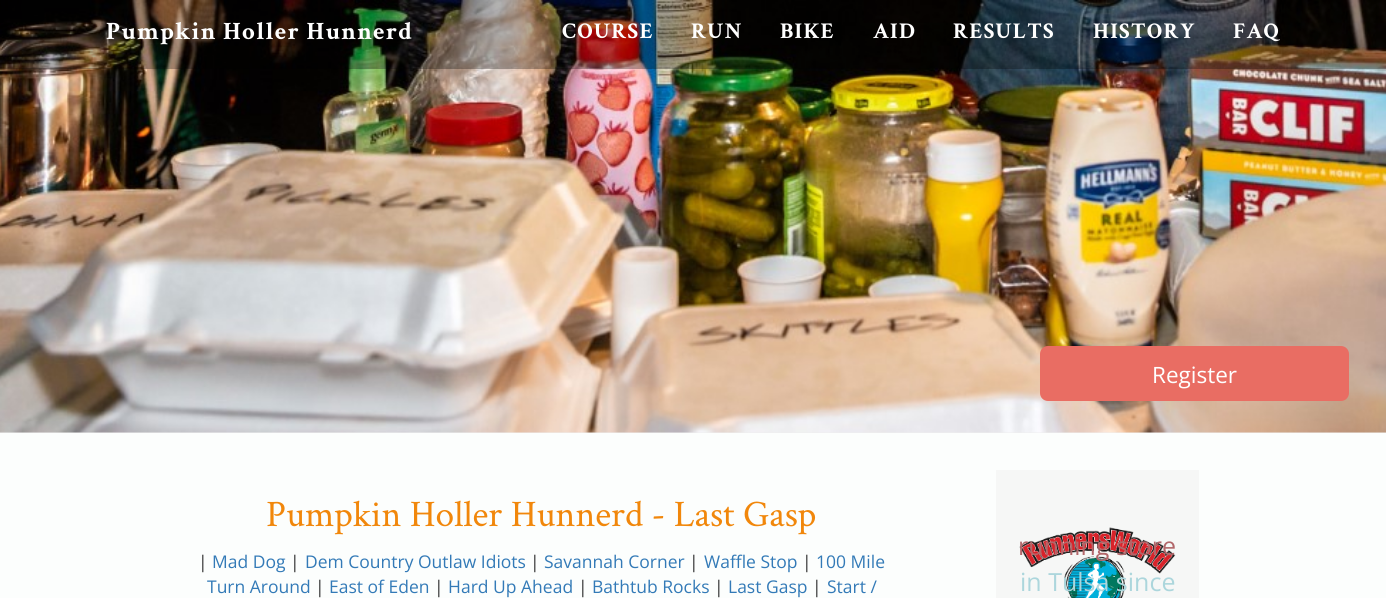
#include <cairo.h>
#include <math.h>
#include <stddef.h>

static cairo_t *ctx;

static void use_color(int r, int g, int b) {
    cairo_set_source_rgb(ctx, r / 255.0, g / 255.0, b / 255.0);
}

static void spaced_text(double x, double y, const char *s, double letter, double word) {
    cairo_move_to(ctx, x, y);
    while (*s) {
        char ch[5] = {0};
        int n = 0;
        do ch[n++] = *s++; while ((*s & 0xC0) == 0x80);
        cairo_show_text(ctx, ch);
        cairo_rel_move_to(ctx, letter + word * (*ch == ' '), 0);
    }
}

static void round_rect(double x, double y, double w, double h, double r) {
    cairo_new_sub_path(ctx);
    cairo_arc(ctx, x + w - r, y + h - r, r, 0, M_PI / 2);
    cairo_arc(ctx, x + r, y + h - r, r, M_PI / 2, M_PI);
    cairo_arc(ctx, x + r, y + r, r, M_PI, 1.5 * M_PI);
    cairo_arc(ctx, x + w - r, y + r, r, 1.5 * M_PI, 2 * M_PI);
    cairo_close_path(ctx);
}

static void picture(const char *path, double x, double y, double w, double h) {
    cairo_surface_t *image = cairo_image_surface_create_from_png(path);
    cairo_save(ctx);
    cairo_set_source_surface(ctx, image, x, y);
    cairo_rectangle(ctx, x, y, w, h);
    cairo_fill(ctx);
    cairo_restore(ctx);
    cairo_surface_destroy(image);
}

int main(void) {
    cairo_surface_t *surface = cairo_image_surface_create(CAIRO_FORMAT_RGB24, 1386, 598);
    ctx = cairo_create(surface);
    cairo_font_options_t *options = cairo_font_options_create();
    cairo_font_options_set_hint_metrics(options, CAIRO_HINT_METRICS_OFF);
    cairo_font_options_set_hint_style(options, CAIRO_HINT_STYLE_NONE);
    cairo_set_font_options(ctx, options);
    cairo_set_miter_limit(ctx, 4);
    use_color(252, 254, 253);
    cairo_paint(ctx);
    use_color(238, 238, 238);
    cairo_rectangle(ctx, 0, 432, 1386, 1);
    cairo_fill(ctx);
    picture("img1.png", 0, 0, 1386, 433);
    cairo_set_source_rgba(ctx, 0, 0, 0, 0.3);
    cairo_rectangle(ctx, 0, 0, 1386, 69);
    cairo_fill(ctx);
    cairo_select_font_face(ctx, "Crimson Text", CAIRO_FONT_SLANT_NORMAL, CAIRO_FONT_WEIGHT_BOLD);
    cairo_set_font_size(ctx, 25);
    use_color(255, 255, 255);
    spaced_text(106, 39, "Pumpkin Holler Hunnerd", 1.25, 0);
    cairo_set_font_size(ctx, 22.5);
    spaced_text(562, 38, "COURSE", 1.25, 0);
    spaced_text(691, 38, "RUN", 1.25, 0);
    spaced_text(780, 38, "BIKE", 1.25, 0);
    spaced_text(873, 38, "AID", 1.25, 0);
    spaced_text(953, 38, "RESULTS", 1.25, 0);
    spaced_text(1093, 38, "HISTORY", 1.25, 0);
    spaced_text(1233, 38, "FAQ", 1.25, 0);
    use_color(233, 109, 99);
    round_rect(1040, 346, 309, 55, 8);
    cairo_fill(ctx);
    cairo_select_font_face(ctx, "Open Sans", CAIRO_FONT_SLANT_NORMAL, CAIRO_FONT_WEIGHT_NORMAL);
    use_color(255, 255, 255);
    cairo_move_to(ctx, 1152, 383);
    cairo_show_text(ctx, "Register");
    cairo_select_font_face(ctx, "Crimson Text", CAIRO_FONT_SLANT_NORMAL, CAIRO_FONT_WEIGHT_NORMAL);
    cairo_set_font_size(ctx, 37.5);
    use_color(241, 135, 11);
    cairo_move_to(ctx, 266, 526);
    cairo_show_text(ctx, "Pumpkin Holler Hunnerd - Last Gasp");
    cairo_select_font_face(ctx, "Open Sans", CAIRO_FONT_SLANT_NORMAL, CAIRO_FONT_WEIGHT_NORMAL);
    cairo_set_font_size(ctx, 17.5);
    use_color(51, 51, 51);
    cairo_move_to(ctx, 198, 568);
    cairo_show_text(ctx, "|");
    use_color(51, 122, 183);
    cairo_move_to(ctx, 212, 568);
    cairo_show_text(ctx, "Mad Dog");
    use_color(51, 51, 51);
    cairo_move_to(ctx, 290, 568);
    cairo_show_text(ctx, "|");
    use_color(51, 122, 183);
    cairo_move_to(ctx, 305, 568);
    cairo_show_text(ctx, "Dem Country Outlaw Idiots");
    use_color(51, 51, 51);
    cairo_move_to(ctx, 530, 568);
    cairo_show_text(ctx, "|");
    use_color(51, 122, 183);
    cairo_move_to(ctx, 544, 568);
    cairo_show_text(ctx, "Savannah Corner");
    use_color(51, 51, 51);
    cairo_move_to(ctx, 689, 568);
    cairo_show_text(ctx, "|");
    use_color(51, 122, 183);
    cairo_move_to(ctx, 704, 568);
    cairo_show_text(ctx, "Waffle Stop");
    use_color(51, 51, 51);
    cairo_move_to(ctx, 802, 568);
    cairo_show_text(ctx, "|");
    use_color(51, 122, 183);
    cairo_move_to(ctx, 816, 568);
    cairo_show_text(ctx, "100 Mile");
    cairo_move_to(ctx, 207, 593);
    cairo_show_text(ctx, "Turn Around");
    use_color(51, 51, 51);
    cairo_move_to(ctx, 315, 593);
    cairo_show_text(ctx, "|");
    use_color(51, 122, 183);
    cairo_move_to(ctx, 329, 593);
    cairo_show_text(ctx, "East of Eden");
    use_color(51, 51, 51);
    cairo_move_to(ctx, 434, 593);
    cairo_show_text(ctx, "|");
    use_color(51, 122, 183);
    cairo_move_to(ctx, 448, 593);
    cairo_show_text(ctx, "Hard Up Ahead");
    use_color(51, 51, 51);
    cairo_move_to(ctx, 578, 593);
    cairo_show_text(ctx, "|");
    use_color(51, 122, 183);
    cairo_move_to(ctx, 592, 593);
    cairo_show_text(ctx, "Bathtub Rocks");
    use_color(51, 51, 51);
    cairo_move_to(ctx, 714, 593);
    cairo_show_text(ctx, "|");
    use_color(51, 122, 183);
    cairo_move_to(ctx, 728, 593);
    cairo_show_text(ctx, "Last Gasp");
    use_color(51, 51, 51);
    cairo_move_to(ctx, 812, 593);
    cairo_show_text(ctx, "|");
    use_color(51, 122, 183);
    cairo_move_to(ctx, 827, 593);
    cairo_show_text(ctx, "Start /");
    use_color(246, 247, 246);
    cairo_rectangle(ctx, 996, 470, 203, 128);
    cairo_fill(ctx);
    picture("img2.png", 1019, 527, 157, 71);
    cairo_set_font_size(ctx, 25);
    use_color(178, 103, 106);
    cairo_move_to(ctx, 1018, 555);
    cairo_show_text(ctx, "running store");
    use_color(172, 214, 220);
    cairo_move_to(ctx, 1020, 591);
    cairo_show_text(ctx, "in Tulsa since");
    cairo_surface_write_to_png(surface, "result.png");
    cairo_font_options_destroy(options);
    cairo_destroy(ctx);
    cairo_surface_destroy(surface);
    return 0;
}
